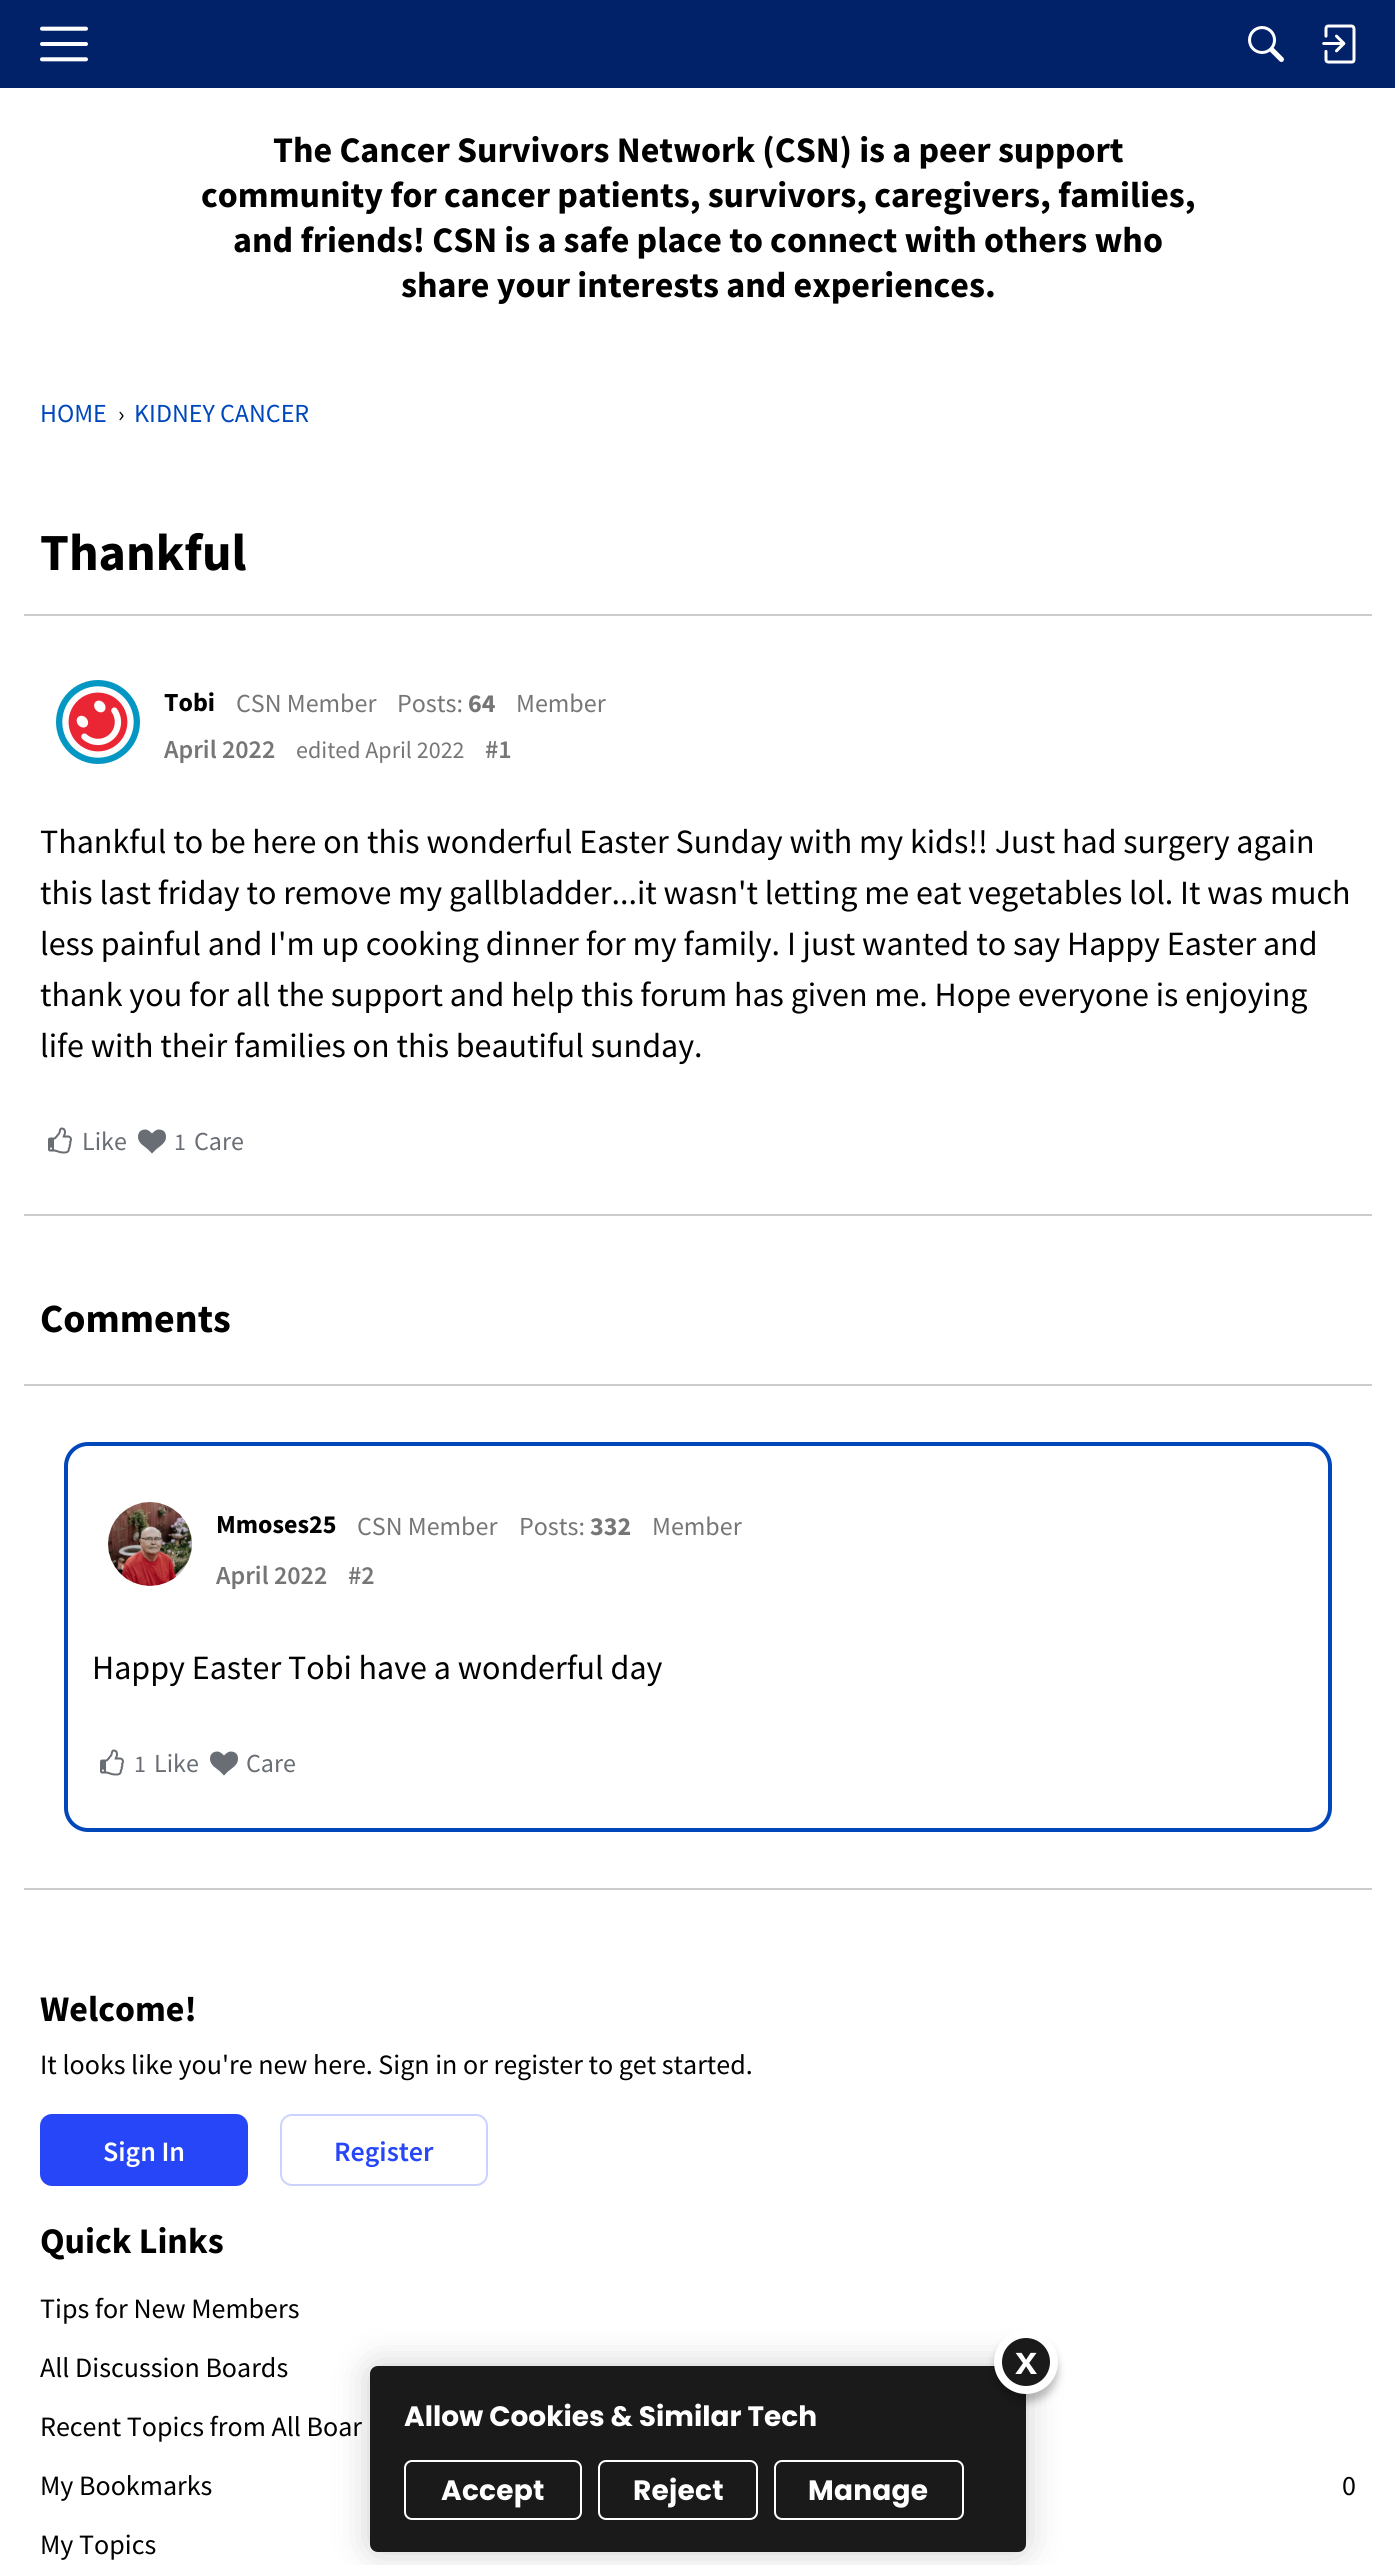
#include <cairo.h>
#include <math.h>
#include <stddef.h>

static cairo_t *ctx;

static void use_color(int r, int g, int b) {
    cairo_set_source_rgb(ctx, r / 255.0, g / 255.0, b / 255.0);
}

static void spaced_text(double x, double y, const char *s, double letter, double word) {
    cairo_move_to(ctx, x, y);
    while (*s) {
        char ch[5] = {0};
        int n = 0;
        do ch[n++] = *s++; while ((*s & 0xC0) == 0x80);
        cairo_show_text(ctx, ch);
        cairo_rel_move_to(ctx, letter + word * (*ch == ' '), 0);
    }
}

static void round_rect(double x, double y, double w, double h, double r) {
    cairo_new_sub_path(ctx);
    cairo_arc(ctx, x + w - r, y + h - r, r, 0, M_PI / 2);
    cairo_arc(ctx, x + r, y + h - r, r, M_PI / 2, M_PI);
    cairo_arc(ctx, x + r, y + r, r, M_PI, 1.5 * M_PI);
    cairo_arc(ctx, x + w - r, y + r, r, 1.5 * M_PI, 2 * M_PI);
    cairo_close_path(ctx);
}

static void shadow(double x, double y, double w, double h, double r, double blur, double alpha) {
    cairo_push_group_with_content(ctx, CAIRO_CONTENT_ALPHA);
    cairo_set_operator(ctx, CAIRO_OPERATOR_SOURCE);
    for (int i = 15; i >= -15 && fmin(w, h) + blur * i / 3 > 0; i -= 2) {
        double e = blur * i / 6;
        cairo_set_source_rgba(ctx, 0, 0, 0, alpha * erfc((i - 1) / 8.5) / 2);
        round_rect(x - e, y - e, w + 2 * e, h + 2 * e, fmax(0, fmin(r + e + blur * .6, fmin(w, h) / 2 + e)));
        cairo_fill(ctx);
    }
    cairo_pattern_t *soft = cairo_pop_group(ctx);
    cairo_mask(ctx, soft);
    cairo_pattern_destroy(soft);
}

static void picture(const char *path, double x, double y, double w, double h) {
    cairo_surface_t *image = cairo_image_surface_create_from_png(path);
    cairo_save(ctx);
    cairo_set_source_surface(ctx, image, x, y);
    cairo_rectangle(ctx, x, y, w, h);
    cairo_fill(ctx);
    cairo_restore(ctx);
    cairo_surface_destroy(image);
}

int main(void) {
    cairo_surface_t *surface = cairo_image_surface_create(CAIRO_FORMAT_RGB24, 1395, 2565);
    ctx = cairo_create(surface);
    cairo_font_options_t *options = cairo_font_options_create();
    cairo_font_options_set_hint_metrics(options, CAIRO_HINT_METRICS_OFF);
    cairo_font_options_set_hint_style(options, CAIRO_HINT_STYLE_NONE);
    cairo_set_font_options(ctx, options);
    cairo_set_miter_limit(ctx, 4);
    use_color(255, 255, 255);
    cairo_paint(ctx);
    use_color(1, 33, 105);
    cairo_rectangle(ctx, 0, 0, 1395, 88);
    cairo_fill(ctx);
    picture("img1.png", 40, 26, 48, 36);
    picture("img2.png", 1248, 26, 36, 36);
    picture("img3.png", 1322, 24, 34, 40);
    cairo_select_font_face(ctx, "Source Sans Pro", CAIRO_FONT_SLANT_NORMAL, CAIRO_FONT_WEIGHT_BOLD);
    cairo_set_font_size(ctx, 36);
    use_color(0, 0, 0);
    cairo_move_to(ctx, 273, 162);
    cairo_show_text(ctx, "The Cancer Survivors Network (CSN) is a peer support");
    cairo_move_to(ctx, 201, 207);
    cairo_show_text(ctx, "community for cancer patients, survivors, caregivers, families,");
    cairo_move_to(ctx, 233, 252);
    cairo_show_text(ctx, "and friends! CSN is a safe place to connect with others who");
    cairo_move_to(ctx, 401, 297);
    cairo_show_text(ctx, "share your interests and experiences.");
    cairo_select_font_face(ctx, "Source Sans Pro", CAIRO_FONT_SLANT_NORMAL, CAIRO_FONT_WEIGHT_NORMAL);
    cairo_set_font_size(ctx, 26);
    use_color(0, 71, 187);
    cairo_move_to(ctx, 40, 422);
    cairo_show_text(ctx, "HOME");
    cairo_set_font_size(ctx, 24);
    use_color(0, 0, 0);
    cairo_move_to(ctx, 118, 422);
    cairo_show_text(ctx, "›");
    cairo_set_font_size(ctx, 26);
    use_color(0, 71, 187);
    cairo_move_to(ctx, 134, 422);
    cairo_show_text(ctx, "KIDNEY CANCER");
    cairo_select_font_face(ctx, "Source Sans Pro", CAIRO_FONT_SLANT_NORMAL, CAIRO_FONT_WEIGHT_BOLD);
    cairo_set_font_size(ctx, 52);
    use_color(0, 0, 0);
    cairo_move_to(ctx, 40, 570);
    cairo_show_text(ctx, "Thankful");
    use_color(204, 204, 204);
    cairo_rectangle(ctx, 24, 614, 1348, 2);
    cairo_fill(ctx);
    picture("img4.png", 56, 680, 84, 84);
    cairo_set_font_size(ctx, 26);
    use_color(0, 0, 0);
    cairo_move_to(ctx, 164, 711);
    cairo_show_text(ctx, "Tobi");
    cairo_select_font_face(ctx, "Source Sans Pro", CAIRO_FONT_SLANT_NORMAL, CAIRO_FONT_WEIGHT_NORMAL);
    use_color(118, 118, 118);
    cairo_move_to(ctx, 236, 712);
    cairo_show_text(ctx, "CSN Member");
    cairo_move_to(ctx, 397, 712);
    cairo_show_text(ctx, "Posts:");
    cairo_select_font_face(ctx, "Source Sans Pro", CAIRO_FONT_SLANT_NORMAL, CAIRO_FONT_WEIGHT_BOLD);
    cairo_move_to(ctx, 468, 712);
    cairo_show_text(ctx, "64");
    cairo_select_font_face(ctx, "Source Sans Pro", CAIRO_FONT_SLANT_NORMAL, CAIRO_FONT_WEIGHT_NORMAL);
    cairo_move_to(ctx, 516, 712);
    cairo_show_text(ctx, "Member");
    cairo_select_font_face(ctx, "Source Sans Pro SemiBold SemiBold", CAIRO_FONT_SLANT_NORMAL, CAIRO_FONT_WEIGHT_NORMAL);
    cairo_move_to(ctx, 164, 758);
    cairo_show_text(ctx, "April 2022");
    cairo_select_font_face(ctx, "Source Sans Pro", CAIRO_FONT_SLANT_NORMAL, CAIRO_FONT_WEIGHT_NORMAL);
    cairo_set_font_size(ctx, 24);
    cairo_move_to(ctx, 296, 758);
    cairo_show_text(ctx, "edited April 2022");
    cairo_select_font_face(ctx, "Source Sans Pro SemiBold SemiBold", CAIRO_FONT_SLANT_NORMAL, CAIRO_FONT_WEIGHT_NORMAL);
    cairo_set_font_size(ctx, 26);
    cairo_move_to(ctx, 485, 758);
    cairo_show_text(ctx, "#1");
    cairo_select_font_face(ctx, "Source Sans Pro", CAIRO_FONT_SLANT_NORMAL, CAIRO_FONT_WEIGHT_NORMAL);
    cairo_set_font_size(ctx, 34);
    use_color(0, 0, 0);
    cairo_move_to(ctx, 40, 853);
    cairo_show_text(ctx, "Thankful to be here on this wonderful Easter Sunday with my kids!! Just had surgery again");
    cairo_move_to(ctx, 40, 904);
    cairo_show_text(ctx, "this last friday to remove my gallbladder...it wasn't letting me eat vegetables lol. It was much");
    cairo_move_to(ctx, 40, 955);
    cairo_show_text(ctx, "less painful and I'm up cooking dinner for my family. I just wanted to say Happy Easter and");
    cairo_move_to(ctx, 40, 1006);
    cairo_show_text(ctx, "thank you for all the support and help this forum has given me. Hope everyone is enjoying");
    cairo_move_to(ctx, 40, 1057);
    cairo_show_text(ctx, "life with their families on this beautiful sunday.");
    picture("img5.png", 48, 1127, 24, 27);
    cairo_set_font_size(ctx, 26);
    use_color(105, 110, 117);
    cairo_move_to(ctx, 82, 1150);
    cairo_show_text(ctx, "Like");
    picture("img6.png", 138, 1129, 28, 25);
    cairo_set_font_size(ctx, 24);
    cairo_move_to(ctx, 174, 1150);
    cairo_show_text(ctx, "1");
    cairo_set_font_size(ctx, 26);
    cairo_move_to(ctx, 194, 1150);
    cairo_show_text(ctx, "Care");
    use_color(204, 204, 204);
    cairo_rectangle(ctx, 24, 1214, 1348, 2);
    cairo_fill(ctx);
    cairo_select_font_face(ctx, "Source Sans Pro", CAIRO_FONT_SLANT_NORMAL, CAIRO_FONT_WEIGHT_BOLD);
    cairo_set_font_size(ctx, 40);
    use_color(0, 0, 0);
    cairo_move_to(ctx, 40, 1332);
    cairo_show_text(ctx, "Comments");
    use_color(204, 204, 204);
    cairo_rectangle(ctx, 24, 1384, 1348, 2);
    cairo_fill(ctx);
    round_rect(66, 1444, 1264, 386, 22);
    use_color(0, 71, 187);
    cairo_set_line_width(ctx, 4);
    cairo_stroke(ctx);
    picture("img7.png", 108, 1502, 84, 84);
    cairo_set_font_size(ctx, 26);
    use_color(0, 0, 0);
    cairo_move_to(ctx, 216, 1533);
    cairo_show_text(ctx, "Mmoses25");
    cairo_select_font_face(ctx, "Source Sans Pro", CAIRO_FONT_SLANT_NORMAL, CAIRO_FONT_WEIGHT_NORMAL);
    use_color(118, 118, 118);
    cairo_move_to(ctx, 357, 1535);
    cairo_show_text(ctx, "CSN Member");
    cairo_move_to(ctx, 519, 1535);
    cairo_show_text(ctx, "Posts:");
    cairo_select_font_face(ctx, "Source Sans Pro", CAIRO_FONT_SLANT_NORMAL, CAIRO_FONT_WEIGHT_BOLD);
    cairo_move_to(ctx, 590, 1535);
    cairo_show_text(ctx, "332");
    cairo_select_font_face(ctx, "Source Sans Pro", CAIRO_FONT_SLANT_NORMAL, CAIRO_FONT_WEIGHT_NORMAL);
    cairo_move_to(ctx, 652, 1535);
    cairo_show_text(ctx, "Member");
    cairo_select_font_face(ctx, "Source Sans Pro SemiBold SemiBold", CAIRO_FONT_SLANT_NORMAL, CAIRO_FONT_WEIGHT_NORMAL);
    cairo_move_to(ctx, 216, 1584);
    cairo_show_text(ctx, "April 2022");
    cairo_move_to(ctx, 348, 1584);
    cairo_show_text(ctx, "#2");
    cairo_select_font_face(ctx, "Source Sans Pro", CAIRO_FONT_SLANT_NORMAL, CAIRO_FONT_WEIGHT_NORMAL);
    cairo_set_font_size(ctx, 34);
    use_color(0, 0, 0);
    cairo_move_to(ctx, 92, 1679);
    cairo_show_text(ctx, "Happy Easter Tobi have a wonderful day");
    picture("img5.png", 100, 1749, 24, 27);
    cairo_set_font_size(ctx, 24);
    use_color(105, 110, 117);
    cairo_move_to(ctx, 134, 1772);
    cairo_show_text(ctx, "1");
    cairo_set_font_size(ctx, 26);
    cairo_move_to(ctx, 154, 1772);
    cairo_show_text(ctx, "Like");
    picture("img6.png", 210, 1751, 28, 25);
    cairo_move_to(ctx, 246, 1772);
    cairo_show_text(ctx, "Care");
    use_color(204, 204, 204);
    cairo_rectangle(ctx, 24, 1888, 1348, 2);
    cairo_fill(ctx);
    cairo_select_font_face(ctx, "Source Sans Pro", CAIRO_FONT_SLANT_NORMAL, CAIRO_FONT_WEIGHT_BOLD);
    cairo_set_font_size(ctx, 36);
    use_color(0, 0, 0);
    cairo_move_to(ctx, 40, 2021);
    cairo_show_text(ctx, "Welcome!");
    cairo_select_font_face(ctx, "Source Sans Pro", CAIRO_FONT_SLANT_NORMAL, CAIRO_FONT_WEIGHT_NORMAL);
    cairo_set_font_size(ctx, 28);
    cairo_move_to(ctx, 40, 2074);
    cairo_show_text(ctx, "It looks like you're new here. Sign in or register to get started.");
    use_color(39, 70, 248);
    round_rect(41, 2115, 206, 70, 11);
    cairo_fill_preserve(ctx);
    cairo_set_line_width(ctx, 2);
    cairo_stroke(ctx);
    cairo_select_font_face(ctx, "Source Sans Pro SemiBold SemiBold", CAIRO_FONT_SLANT_NORMAL, CAIRO_FONT_WEIGHT_NORMAL);
    use_color(255, 255, 255);
    cairo_move_to(ctx, 103, 2161);
    cairo_show_text(ctx, "Sign In");
    round_rect(281, 2115, 206, 70, 11);
    use_color(203, 211, 253);
    cairo_stroke(ctx);
    use_color(39, 70, 248);
    cairo_move_to(ctx, 334, 2161);
    cairo_show_text(ctx, "Register");
    cairo_select_font_face(ctx, "Source Sans Pro", CAIRO_FONT_SLANT_NORMAL, CAIRO_FONT_WEIGHT_BOLD);
    cairo_set_font_size(ctx, 36);
    use_color(0, 0, 0);
    cairo_move_to(ctx, 40, 2253);
    cairo_show_text(ctx, "Quick Links");
    cairo_select_font_face(ctx, "Source Sans Pro", CAIRO_FONT_SLANT_NORMAL, CAIRO_FONT_WEIGHT_NORMAL);
    cairo_set_font_size(ctx, 28);
    cairo_move_to(ctx, 40, 2318);
    cairo_show_text(ctx, "Tips for New Members");
    cairo_move_to(ctx, 40, 2377);
    cairo_show_text(ctx, "All Discussion Boards");
    cairo_move_to(ctx, 40, 2436);
    cairo_show_text(ctx, "Recent Topics from All Boar");
    cairo_move_to(ctx, 40, 2495);
    cairo_show_text(ctx, "My Bookmarks");
    cairo_move_to(ctx, 1342, 2495);
    cairo_show_text(ctx, "0");
    cairo_move_to(ctx, 40, 2554);
    cairo_show_text(ctx, "My Topics");
    use_color(0, 0, 0);
    shadow(370, 2366, 656, 186, 8, 18, 0.2);
    use_color(26, 26, 26);
    round_rect(370, 2366, 656, 186, 8);
    cairo_fill(ctx);
    round_rect(371, 2367, 654, 184, 7);
    cairo_set_source_rgba(ctx, 0.102, 0.102, 0.102, 0.2);
    cairo_stroke(ctx);
    use_color(0, 0, 0);
    shadow(994, 2338, 64, 64, 32, 4, 0.25);
    use_color(26, 26, 26);
    cairo_arc(ctx, 1026, 2362, 28, 0, 2 * M_PI);
    cairo_fill_preserve(ctx);
    use_color(255, 255, 255);
    cairo_set_line_width(ctx, 8);
    cairo_stroke(ctx);
    cairo_select_font_face(ctx, "Liberation Sans", CAIRO_FONT_SLANT_NORMAL, CAIRO_FONT_WEIGHT_BOLD);
    cairo_set_font_size(ctx, 40);
    cairo_move_to(ctx, 1015, 2374);
    cairo_show_text(ctx, "x");
    cairo_select_font_face(ctx, "Poppins", CAIRO_FONT_SLANT_NORMAL, CAIRO_FONT_WEIGHT_BOLD);
    cairo_set_font_size(ctx, 28);
    cairo_move_to(ctx, 404, 2426);
    cairo_show_text(ctx, "Allow Cookies & Similar Tech");
    round_rect(405, 2461, 176, 58, 7);
    cairo_set_line_width(ctx, 2);
    cairo_stroke(ctx);
    spaced_text(441, 2500, "Accept", 0.25, 0);
    round_rect(599, 2461, 158, 58, 7);
    cairo_stroke(ctx);
    spaced_text(633, 2500, "Reject", 0.25, 0);
    round_rect(775, 2461, 188, 58, 7);
    cairo_stroke(ctx);
    spaced_text(808, 2500, "Manage", 0.25, 0);
    cairo_surface_write_to_png(surface, "result.png");
    cairo_font_options_destroy(options);
    cairo_destroy(ctx);
    cairo_surface_destroy(surface);
    return 0;
}
